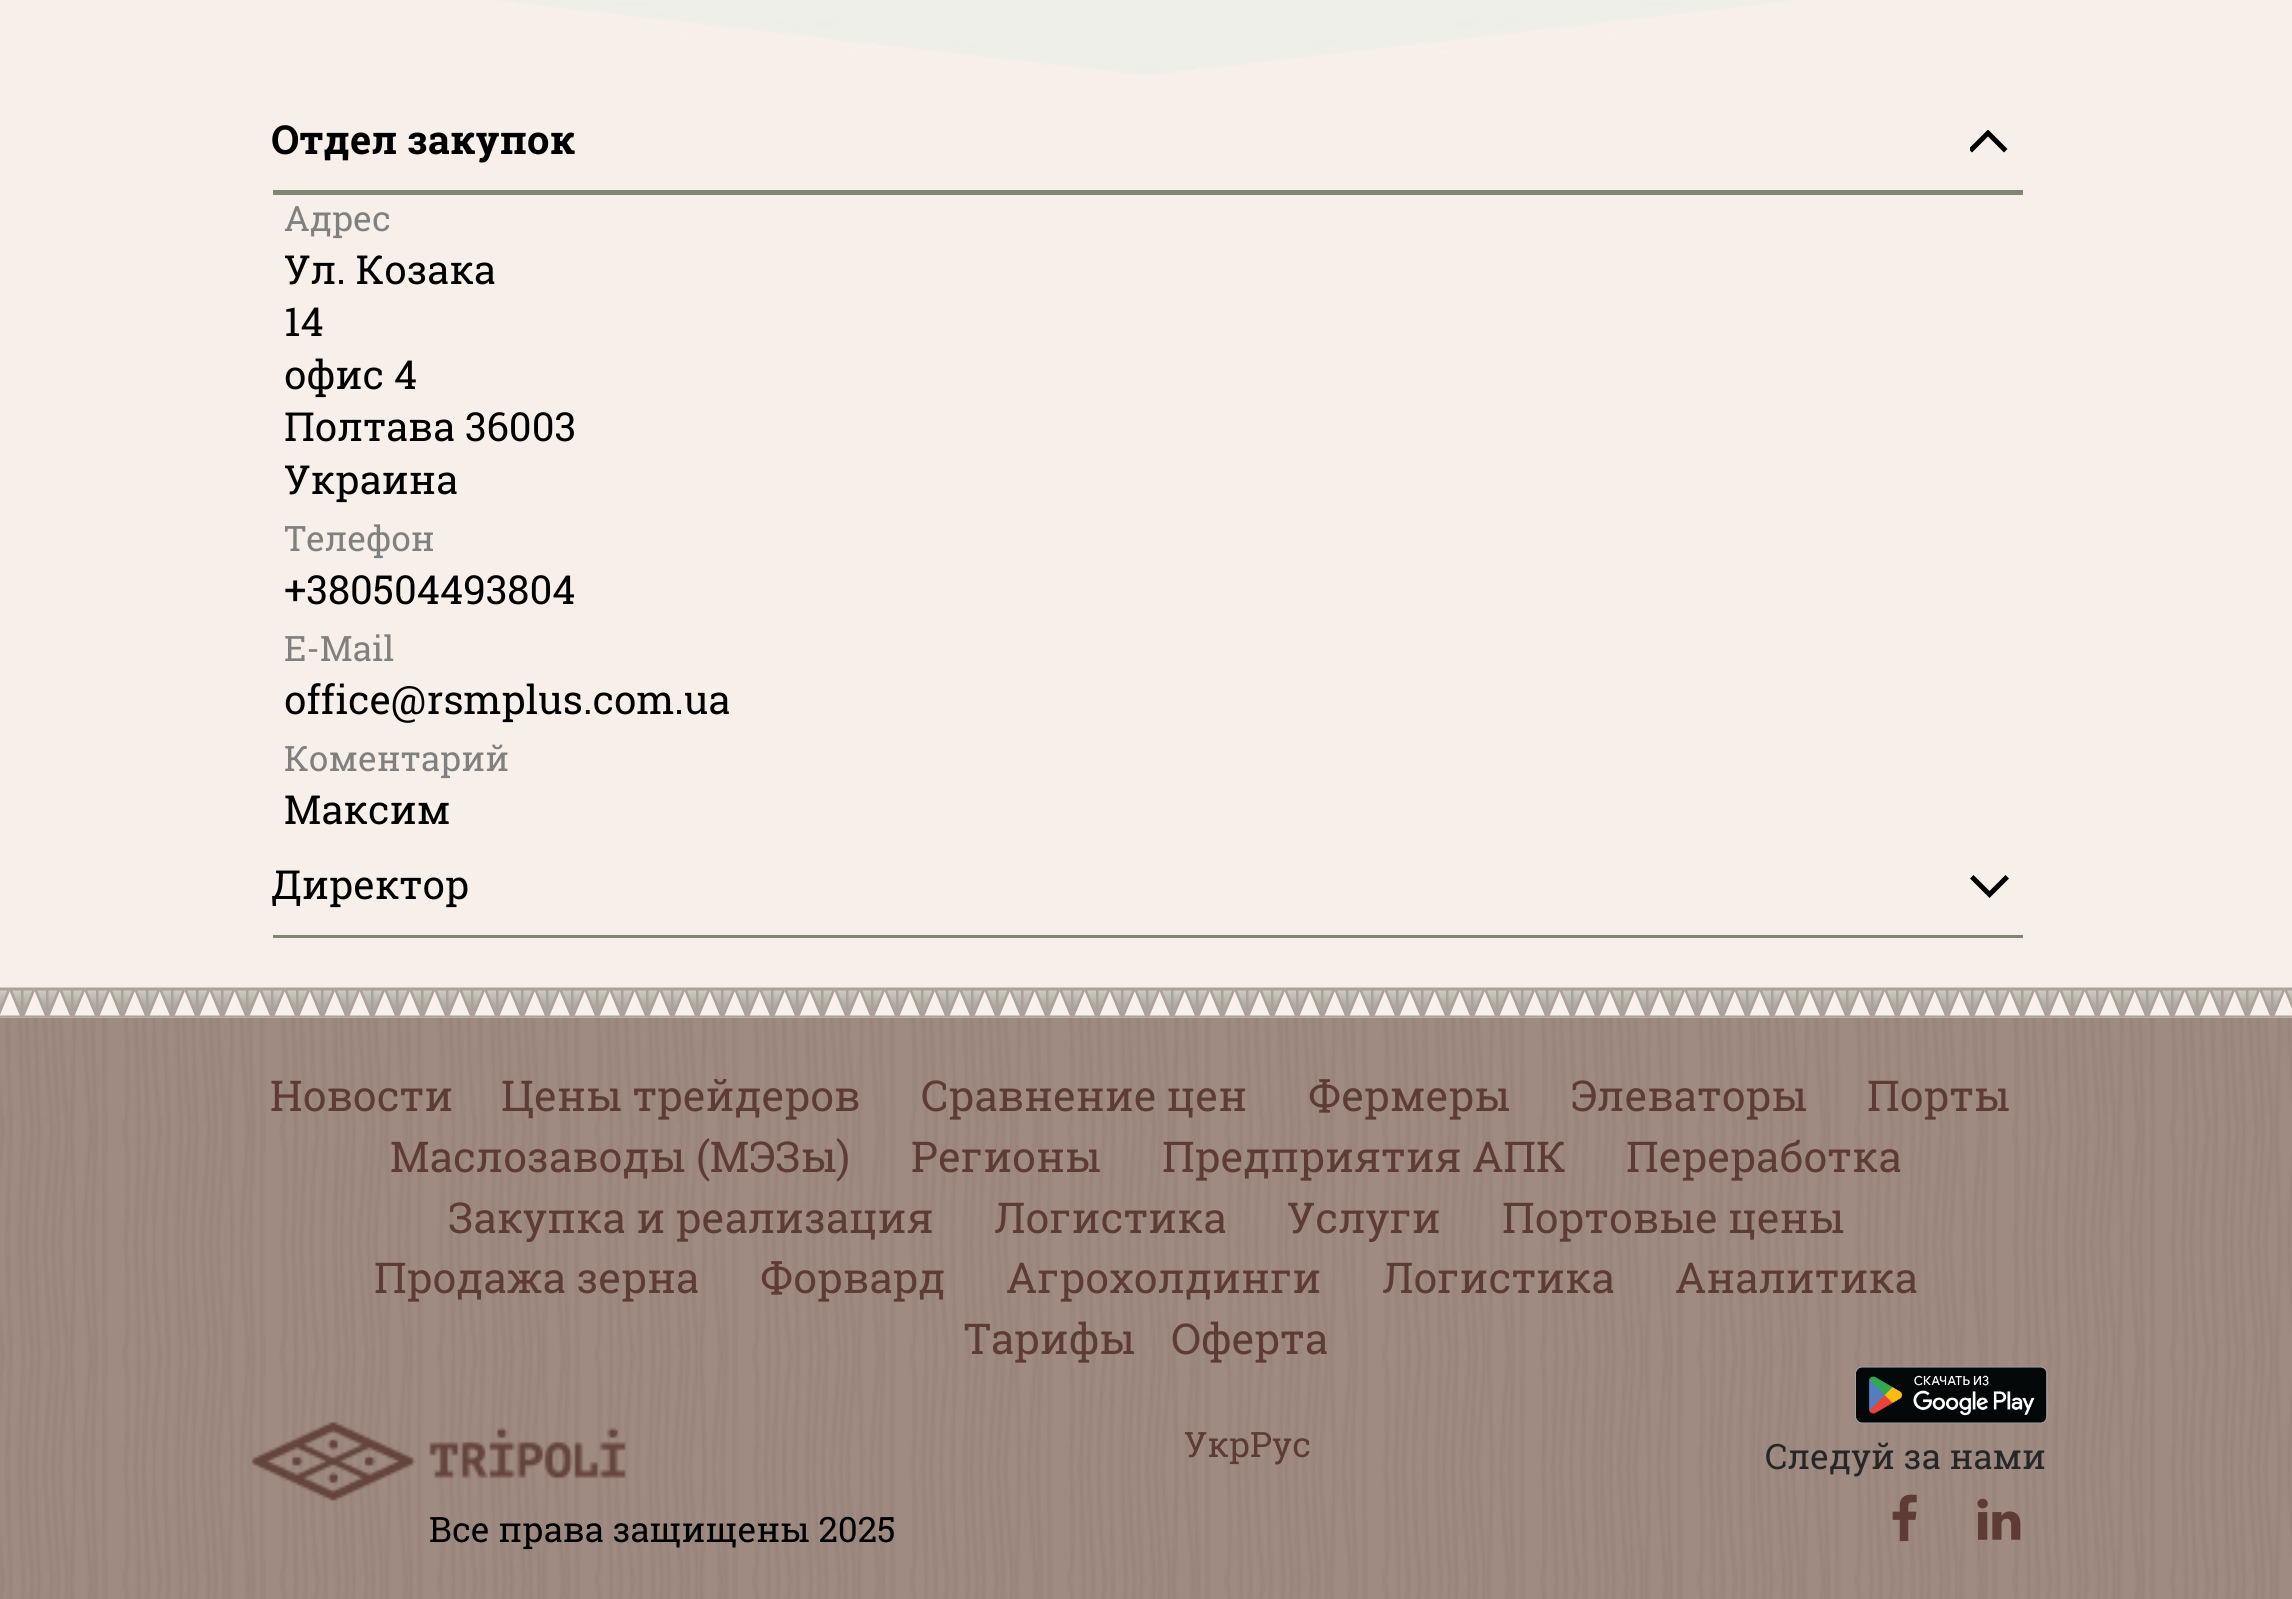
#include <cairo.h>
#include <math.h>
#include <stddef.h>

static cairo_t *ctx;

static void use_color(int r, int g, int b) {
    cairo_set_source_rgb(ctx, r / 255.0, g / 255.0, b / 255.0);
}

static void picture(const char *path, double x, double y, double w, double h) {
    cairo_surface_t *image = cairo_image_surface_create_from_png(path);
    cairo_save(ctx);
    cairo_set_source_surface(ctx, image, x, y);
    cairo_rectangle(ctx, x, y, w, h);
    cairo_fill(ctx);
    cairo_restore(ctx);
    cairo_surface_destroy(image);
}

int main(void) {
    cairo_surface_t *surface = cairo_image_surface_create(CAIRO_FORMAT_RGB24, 2292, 1599);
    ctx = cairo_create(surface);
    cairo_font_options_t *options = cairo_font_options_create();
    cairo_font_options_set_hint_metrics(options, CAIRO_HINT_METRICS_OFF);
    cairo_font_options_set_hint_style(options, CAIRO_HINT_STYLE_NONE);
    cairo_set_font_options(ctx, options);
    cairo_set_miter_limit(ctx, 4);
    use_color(255, 255, 255);
    cairo_paint(ctx);
    use_color(247, 240, 234);
    cairo_rectangle(ctx, 0, 0, 2292, 988);
    cairo_fill(ctx);
    picture("img1.png", 497, 0, 1298, 75);
    use_color(128, 134, 115);
    cairo_rectangle(ctx, 273, 190, 1750, 5);
    cairo_fill(ctx);
    cairo_select_font_face(ctx, "Roboto Slab", CAIRO_FONT_SLANT_NORMAL, CAIRO_FONT_WEIGHT_BOLD);
    cairo_set_font_size(ctx, 40);
    use_color(0, 0, 0);
    cairo_move_to(ctx, 271, 154);
    cairo_show_text(ctx, "Отдел закупок");
    cairo_save(ctx);
    cairo_rectangle(ctx, 1970, 130, 40, 25);
    cairo_clip(ctx);
    cairo_set_fill_rule(ctx, CAIRO_FILL_RULE_EVEN_ODD);
    cairo_new_path(ctx);
    cairo_move_to(ctx, 1988, 136.5);
    cairo_line_to(ctx, 1972, 152.5);
    cairo_line_to(ctx, 1968.5, 149);
    cairo_line_to(ctx, 1988, 129.5);
    cairo_line_to(ctx, 2007.5, 149);
    cairo_line_to(ctx, 2004, 152.5);
    cairo_close_path(ctx);
    cairo_fill(ctx);
    cairo_restore(ctx);
    cairo_select_font_face(ctx, "Roboto Slab", CAIRO_FONT_SLANT_NORMAL, CAIRO_FONT_WEIGHT_NORMAL);
    cairo_set_font_size(ctx, 35);
    use_color(128, 128, 128);
    cairo_move_to(ctx, 284, 231);
    cairo_show_text(ctx, "Адрес");
    cairo_save(ctx);
    cairo_rectangle(ctx, 285, 195, 1725, 640);
    cairo_clip(ctx);
    cairo_set_font_size(ctx, 40);
    use_color(0, 0, 0);
    cairo_move_to(ctx, 284, 284);
    cairo_show_text(ctx, "Ул. Козака");
    cairo_restore(ctx);
    cairo_set_font_size(ctx, 40);
    use_color(0, 0, 0);
    cairo_move_to(ctx, 284, 336);
    cairo_show_text(ctx, "14");
    cairo_move_to(ctx, 284, 389);
    cairo_show_text(ctx, "офис 4");
    cairo_move_to(ctx, 284, 441);
    cairo_show_text(ctx, "Полтава 36003");
    cairo_save(ctx);
    cairo_rectangle(ctx, 285, 195, 1725, 640);
    cairo_clip(ctx);
    cairo_move_to(ctx, 284, 494);
    cairo_show_text(ctx, "Украина");
    cairo_set_font_size(ctx, 35);
    use_color(128, 128, 128);
    cairo_move_to(ctx, 284, 551);
    cairo_show_text(ctx, "Телефон");
    cairo_restore(ctx);
    cairo_move_to(ctx, 284, 604);
    cairo_show_text(ctx, "+380504493804");
    cairo_set_font_size(ctx, 35);
    use_color(128, 128, 128);
    cairo_move_to(ctx, 284, 661);
    cairo_show_text(ctx, "E-Mail");
    cairo_set_font_size(ctx, 40);
    use_color(0, 0, 0);
    cairo_move_to(ctx, 284, 714);
    cairo_show_text(ctx, "office@rsmplus.com.ua");
    cairo_set_font_size(ctx, 35);
    use_color(128, 128, 128);
    cairo_move_to(ctx, 284, 771);
    cairo_show_text(ctx, "Коментарий");
    cairo_set_font_size(ctx, 40);
    use_color(0, 0, 0);
    cairo_move_to(ctx, 284, 824);
    cairo_show_text(ctx, "Максим");
    use_color(128, 134, 115);
    cairo_rectangle(ctx, 273, 935, 1750, 3);
    cairo_fill(ctx);
    use_color(0, 0, 0);
    cairo_move_to(ctx, 271, 899);
    cairo_show_text(ctx, "Директор");
    cairo_set_fill_rule(ctx, CAIRO_FILL_RULE_EVEN_ODD);
    cairo_new_path(ctx);
    cairo_move_to(ctx, 1989.5, 891);
    cairo_line_to(ctx, 2005.5, 875);
    cairo_line_to(ctx, 2009, 878.5);
    cairo_line_to(ctx, 1989.5, 898);
    cairo_line_to(ctx, 1970, 878.5);
    cairo_line_to(ctx, 1973.5, 875);
    cairo_close_path(ctx);
    cairo_fill(ctx);
    picture("img2.png", 0, 987, 2292, 31);
    picture("img3.png", 0, 1017, 2292, 582);
    cairo_set_font_size(ctx, 42.5);
    use_color(92, 60, 53);
    cairo_move_to(ctx, 270, 1111);
    cairo_show_text(ctx, "Новости");
    cairo_move_to(ctx, 501, 1111);
    cairo_show_text(ctx, "Цены трейдеров");
    cairo_move_to(ctx, 921, 1111);
    cairo_show_text(ctx, "Сравнение цен");
    cairo_move_to(ctx, 1308, 1111);
    cairo_show_text(ctx, "Фермеры");
    cairo_move_to(ctx, 1571, 1111);
    cairo_show_text(ctx, "Элеваторы");
    cairo_move_to(ctx, 1867, 1111);
    cairo_show_text(ctx, "Порты");
    cairo_move_to(ctx, 390, 1172);
    cairo_show_text(ctx, "Маслозаводы (МЭЗы)");
    cairo_move_to(ctx, 911, 1172);
    cairo_show_text(ctx, "Регионы");
    cairo_move_to(ctx, 1162, 1172);
    cairo_show_text(ctx, "Предприятия АПК");
    cairo_move_to(ctx, 1626, 1172);
    cairo_show_text(ctx, "Переработка");
    cairo_move_to(ctx, 448, 1233);
    cairo_show_text(ctx, "Закупка и реализация");
    cairo_move_to(ctx, 994, 1233);
    cairo_show_text(ctx, "Логистика");
    cairo_move_to(ctx, 1287, 1233);
    cairo_show_text(ctx, "Услуги");
    cairo_move_to(ctx, 1502, 1233);
    cairo_show_text(ctx, "Портовые цены");
    cairo_move_to(ctx, 374, 1293);
    cairo_show_text(ctx, "Продажа зерна");
    cairo_move_to(ctx, 760, 1293);
    cairo_show_text(ctx, "Форвард");
    cairo_move_to(ctx, 1006, 1293);
    cairo_show_text(ctx, "Агрохолдинги");
    cairo_move_to(ctx, 1382, 1293);
    cairo_show_text(ctx, "Логистика");
    cairo_move_to(ctx, 1675, 1293);
    cairo_show_text(ctx, "Аналитика");
    cairo_move_to(ctx, 964, 1354);
    cairo_show_text(ctx, "Тарифы");
    cairo_move_to(ctx, 1171, 1354);
    cairo_show_text(ctx, "Оферта");
    cairo_set_font_size(ctx, 35);
    cairo_move_to(ctx, 1184, 1457);
    cairo_show_text(ctx, "УкрРус");
    picture("img4.png", 1855, 1366, 193, 58);
    use_color(38, 38, 38);
    cairo_move_to(ctx, 1765, 1469);
    cairo_show_text(ctx, "Следуй за нами");
    picture("img5.png", 1892, 1494, 25, 48);
    picture("img6.png", 1977, 1498, 44, 42);
    picture("img7.png", 251, 1421, 375, 80);
    use_color(0, 0, 0);
    cairo_move_to(ctx, 429, 1542);
    cairo_show_text(ctx, "Все права защищены 2025");
    cairo_surface_write_to_png(surface, "result.png");
    cairo_font_options_destroy(options);
    cairo_destroy(ctx);
    cairo_surface_destroy(surface);
    return 0;
}
